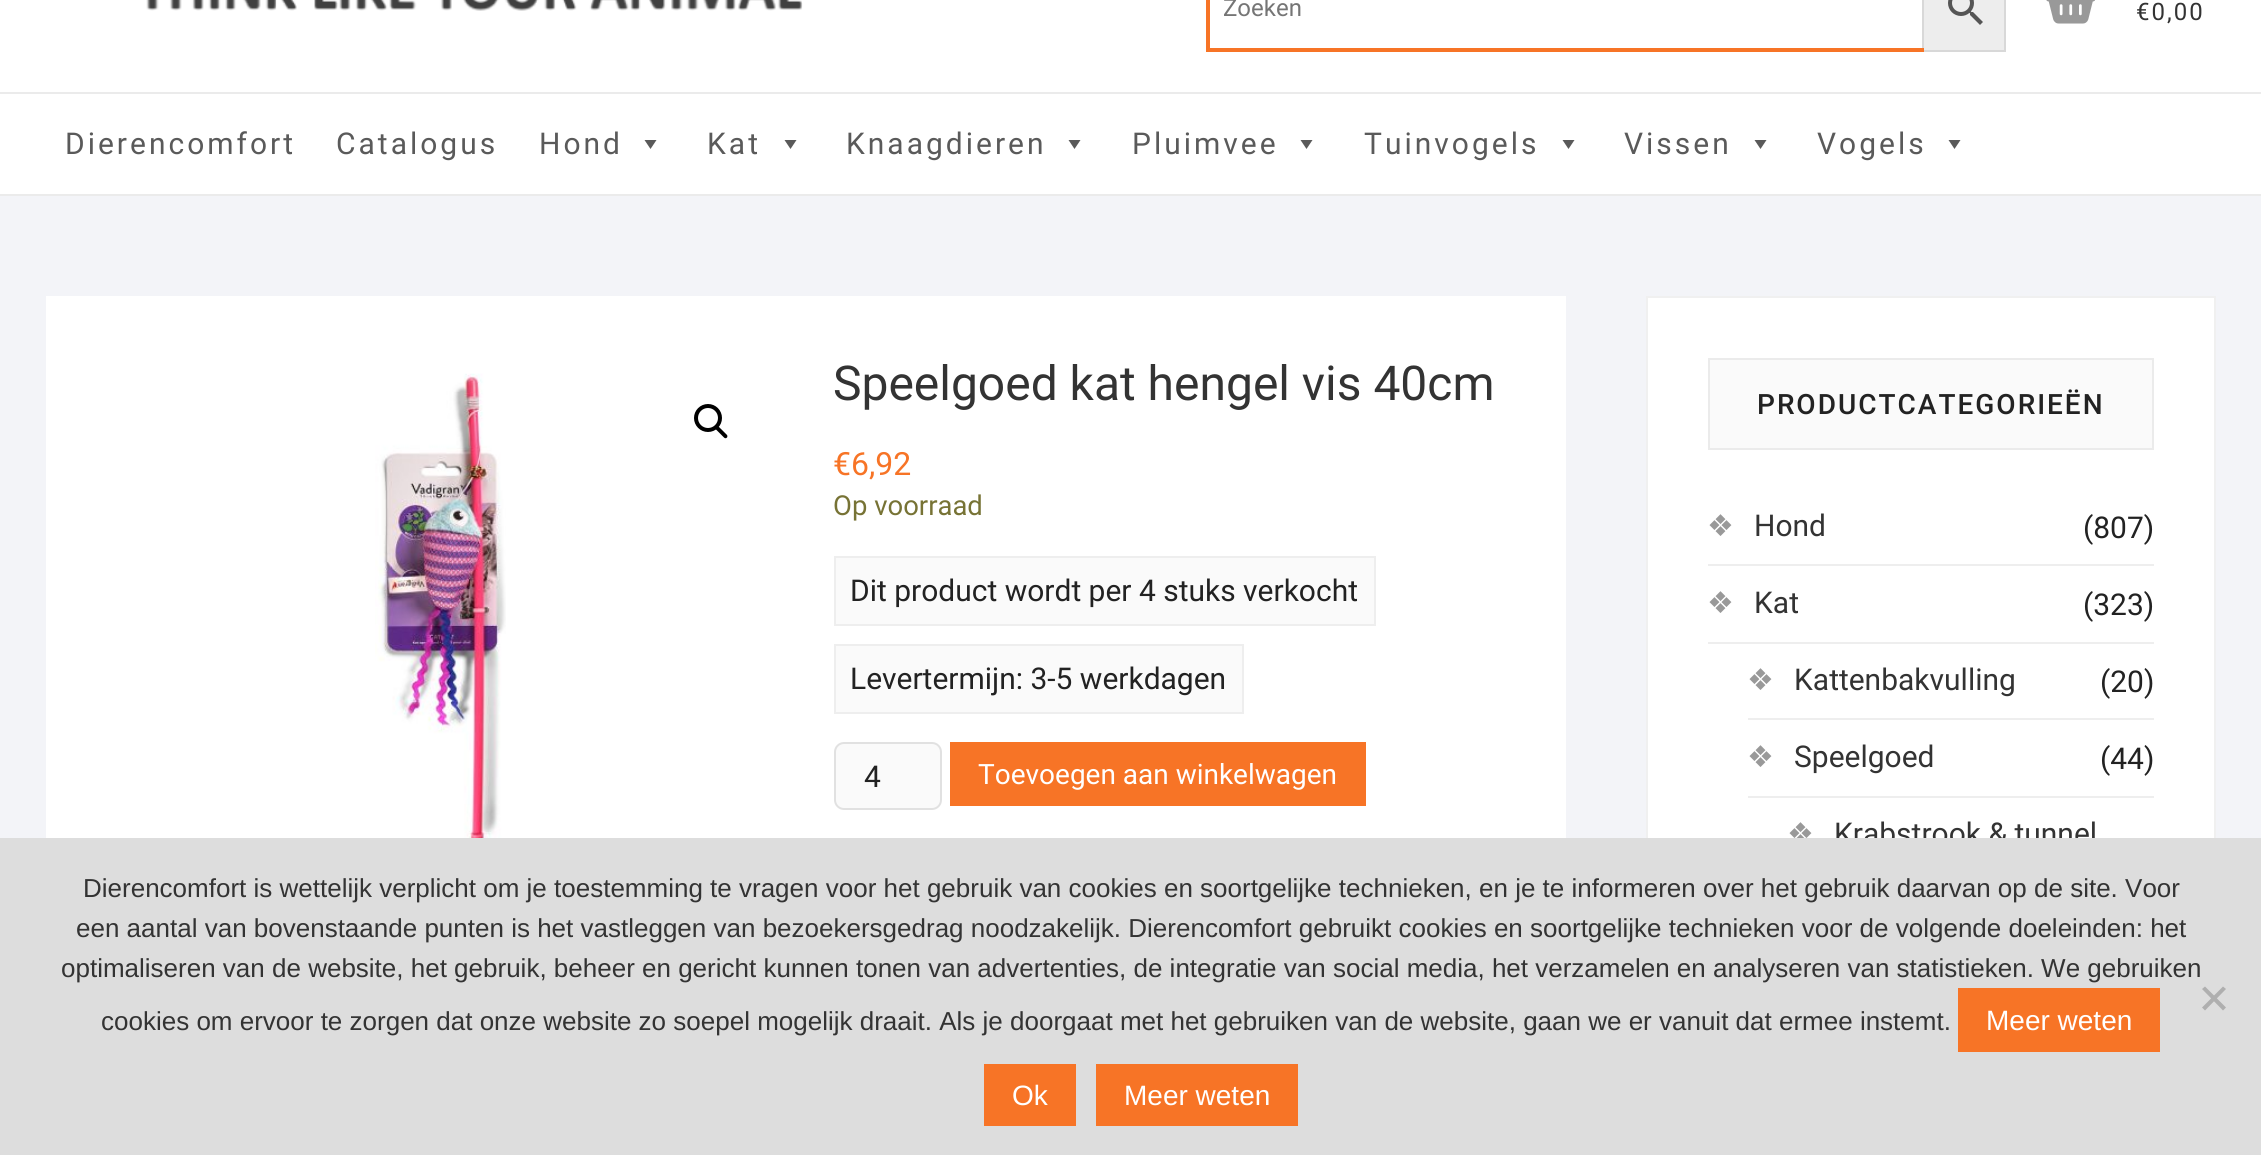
#include <cairo.h>
#include <math.h>
#include <stddef.h>

static cairo_t *ctx;

static void use_color(int r, int g, int b) {
    cairo_set_source_rgb(ctx, r / 255.0, g / 255.0, b / 255.0);
}

static void spaced_text(double x, double y, const char *s, double letter, double word) {
    cairo_move_to(ctx, x, y);
    while (*s) {
        char ch[5] = {0};
        int n = 0;
        do ch[n++] = *s++; while ((*s & 0xC0) == 0x80);
        cairo_show_text(ctx, ch);
        cairo_rel_move_to(ctx, letter + word * (*ch == ' '), 0);
    }
}

static void round_rect(double x, double y, double w, double h, double r) {
    cairo_new_sub_path(ctx);
    cairo_arc(ctx, x + w - r, y + h - r, r, 0, M_PI / 2);
    cairo_arc(ctx, x + r, y + h - r, r, M_PI / 2, M_PI);
    cairo_arc(ctx, x + r, y + r, r, M_PI, 1.5 * M_PI);
    cairo_arc(ctx, x + w - r, y + r, r, 1.5 * M_PI, 2 * M_PI);
    cairo_close_path(ctx);
}

static void picture(const char *path, double x, double y, double w, double h) {
    cairo_surface_t *image = cairo_image_surface_create_from_png(path);
    cairo_save(ctx);
    cairo_set_source_surface(ctx, image, x, y);
    cairo_rectangle(ctx, x, y, w, h);
    cairo_fill(ctx);
    cairo_restore(ctx);
    cairo_surface_destroy(image);
}

int main(void) {
    cairo_surface_t *surface = cairo_image_surface_create(CAIRO_FORMAT_RGB24, 2261, 1155);
    ctx = cairo_create(surface);
    cairo_font_options_t *options = cairo_font_options_create();
    cairo_font_options_set_hint_metrics(options, CAIRO_HINT_METRICS_OFF);
    cairo_font_options_set_hint_style(options, CAIRO_HINT_STYLE_NONE);
    cairo_set_font_options(ctx, options);
    cairo_set_miter_limit(ctx, 4);
    use_color(243, 244, 248);
    cairo_paint(ctx);
    use_color(255, 255, 255);
    cairo_rectangle(ctx, 0, 0, 2261, 194);
    cairo_fill(ctx);
    picture("img1.png", 146, 0, 657, 11);
    use_color(237, 237, 237);
    cairo_rectangle(ctx, 1923, -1, 82, 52);
    cairo_fill_preserve(ctx);
    use_color(216, 216, 216);
    cairo_stroke(ctx);
    use_color(247, 116, 38);
    cairo_rectangle(ctx, 1206, 48, 718, 4);
    cairo_fill(ctx);
    cairo_rectangle(ctx, 1206, 0, 4, 52);
    cairo_fill(ctx);
    cairo_select_font_face(ctx, "Roboto", CAIRO_FONT_SLANT_NORMAL, CAIRO_FONT_WEIGHT_NORMAL);
    cairo_set_font_size(ctx, 24);
    use_color(117, 117, 117);
    cairo_move_to(ctx, 1223, 16);
    cairo_show_text(ctx, "Zoeken");
    picture("img2.png", 1948, 0, 35, 25);
    picture("img3.png", 2046, 0, 49, 24);
    use_color(51, 51, 51);
    spaced_text(2136, 20, "€0,00", 2, 0);
    use_color(235, 235, 235);
    cairo_rectangle(ctx, 0, 92, 2261, 2);
    cairo_fill(ctx);
    cairo_rectangle(ctx, 0, 194, 2261, 2);
    cairo_fill(ctx);
    cairo_set_font_size(ctx, 30);
    use_color(90, 90, 90);
    spaced_text(65, 154, "Dierencomfort", 3, 0);
    spaced_text(336, 154, "Catalogus", 3, 0);
    spaced_text(539, 154, "Hond", 3, 0);
    cairo_new_path(ctx);
    cairo_move_to(ctx, 656.5, 140);
    cairo_line_to(ctx, 650.5, 149);
    cairo_line_to(ctx, 644.5, 140);
    cairo_close_path(ctx);
    cairo_fill(ctx);
    spaced_text(707, 154, "Kat", 3, 0);
    cairo_new_path(ctx);
    cairo_move_to(ctx, 796.5, 140);
    cairo_line_to(ctx, 790.5, 149);
    cairo_line_to(ctx, 784.5, 140);
    cairo_close_path(ctx);
    cairo_fill(ctx);
    spaced_text(846, 154, "Knaagdieren", 3, 0);
    cairo_new_path(ctx);
    cairo_move_to(ctx, 1080.5, 140);
    cairo_line_to(ctx, 1074.5, 149);
    cairo_line_to(ctx, 1068.5, 140);
    cairo_close_path(ctx);
    cairo_fill(ctx);
    spaced_text(1132, 154, "Pluimvee", 3, 0);
    cairo_new_path(ctx);
    cairo_move_to(ctx, 1312.5, 140);
    cairo_line_to(ctx, 1306.5, 149);
    cairo_line_to(ctx, 1300.5, 140);
    cairo_close_path(ctx);
    cairo_fill(ctx);
    spaced_text(1364, 154, "Tuinvogels", 3, 0);
    cairo_new_path(ctx);
    cairo_move_to(ctx, 1574.5, 140);
    cairo_line_to(ctx, 1568.5, 149);
    cairo_line_to(ctx, 1562.5, 140);
    cairo_close_path(ctx);
    cairo_fill(ctx);
    spaced_text(1624, 154, "Vissen", 3, 0);
    cairo_new_path(ctx);
    cairo_move_to(ctx, 1766.5, 140);
    cairo_line_to(ctx, 1760.5, 149);
    cairo_line_to(ctx, 1754.5, 140);
    cairo_close_path(ctx);
    cairo_fill(ctx);
    spaced_text(1817, 154, "Vogels", 3, 0);
    cairo_new_path(ctx);
    cairo_move_to(ctx, 1960.5, 140);
    cairo_line_to(ctx, 1954.5, 149);
    cairo_line_to(ctx, 1948.5, 140);
    cairo_close_path(ctx);
    cairo_fill(ctx);
    use_color(255, 255, 255);
    cairo_rectangle(ctx, 46, 296, 1520, 542);
    cairo_fill(ctx);
    picture("img4.png", 375, 373, 131, 465);
    cairo_arc(ctx, 708, 418, 12, 0, 2 * M_PI);
    use_color(0, 0, 0);
    cairo_set_line_width(ctx, 4);
    cairo_stroke(ctx);
    cairo_new_path(ctx);
    cairo_move_to(ctx, 715.5, 426.5);
    cairo_curve_to(ctx, 716.5, 425.5, 717.5, 425.5, 718.5, 426.5);
    cairo_line_to(ctx, 727, 435);
    cairo_curve_to(ctx, 727.5, 435.5, 727.5, 437, 727, 437.5);
    cairo_curve_to(ctx, 726, 438.5, 725, 438.5, 724, 437.5);
    cairo_line_to(ctx, 715.5, 429);
    cairo_curve_to(ctx, 715, 428.5, 715, 427, 715.5, 426.5);
    cairo_close_path(ctx);
    cairo_fill(ctx);
    cairo_set_font_size(ctx, 48);
    use_color(51, 51, 51);
    cairo_move_to(ctx, 833, 400);
    cairo_show_text(ctx, "Speelgoed kat hengel vis 40cm");
    cairo_set_font_size(ctx, 32);
    use_color(247, 116, 38);
    cairo_move_to(ctx, 833, 475);
    cairo_show_text(ctx, "€6,92");
    cairo_set_font_size(ctx, 27.5);
    use_color(119, 115, 53);
    cairo_move_to(ctx, 833, 515);
    cairo_show_text(ctx, "Op voorraad");
    use_color(250, 250, 250);
    cairo_rectangle(ctx, 835, 557, 540, 68);
    cairo_fill_preserve(ctx);
    use_color(238, 238, 238);
    cairo_set_line_width(ctx, 2);
    cairo_stroke(ctx);
    cairo_set_font_size(ctx, 30);
    use_color(34, 34, 34);
    cairo_move_to(ctx, 850, 601);
    cairo_show_text(ctx, "Dit product wordt per 4 stuks verkocht");
    use_color(250, 250, 250);
    cairo_rectangle(ctx, 835, 645, 408, 68);
    cairo_fill_preserve(ctx);
    use_color(238, 238, 238);
    cairo_stroke(ctx);
    use_color(34, 34, 34);
    cairo_move_to(ctx, 850, 689);
    cairo_show_text(ctx, "Levertermijn: 3-5 werkdagen");
    use_color(250, 250, 250);
    round_rect(835, 743, 106, 66, 9);
    cairo_fill_preserve(ctx);
    use_color(225, 225, 225);
    cairo_stroke(ctx);
    use_color(34, 34, 34);
    cairo_move_to(ctx, 864, 787);
    cairo_show_text(ctx, "4");
    use_color(247, 116, 38);
    cairo_rectangle(ctx, 950, 742, 416, 64);
    cairo_fill(ctx);
    cairo_set_font_size(ctx, 28);
    use_color(255, 255, 255);
    cairo_move_to(ctx, 978, 784);
    cairo_show_text(ctx, "Toevoegen aan winkelwagen");
    cairo_rectangle(ctx, 1648, 298, 566, 540);
    cairo_fill(ctx);
    cairo_rectangle(ctx, 1647, 297, 568, 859);
    use_color(240, 240, 240);
    cairo_stroke(ctx);
    use_color(250, 250, 250);
    cairo_rectangle(ctx, 1709, 359, 444, 90);
    cairo_fill_preserve(ctx);
    use_color(235, 235, 235);
    cairo_stroke(ctx);
    cairo_select_font_face(ctx, "Roboto Medium", CAIRO_FONT_SLANT_NORMAL, CAIRO_FONT_WEIGHT_NORMAL);
    use_color(34, 34, 34);
    spaced_text(1757, 414, "PRODUCTCATEGORIEËN", 2, 0);
    use_color(238, 238, 238);
    cairo_rectangle(ctx, 1708, 564, 446, 2);
    cairo_fill(ctx);
    cairo_select_font_face(ctx, "DejaVu Sans", CAIRO_FONT_SLANT_NORMAL, CAIRO_FONT_WEIGHT_NORMAL);
    cairo_set_font_size(ctx, 30);
    use_color(153, 153, 153);
    cairo_move_to(ctx, 1707, 536);
    cairo_show_text(ctx, "❖");
    cairo_select_font_face(ctx, "Roboto", CAIRO_FONT_SLANT_NORMAL, CAIRO_FONT_WEIGHT_NORMAL);
    use_color(51, 51, 51);
    cairo_move_to(ctx, 1754, 536);
    cairo_show_text(ctx, "Hond");
    use_color(34, 34, 34);
    cairo_move_to(ctx, 2083, 538);
    cairo_show_text(ctx, "(807)");
    cairo_select_font_face(ctx, "DejaVu Sans", CAIRO_FONT_SLANT_NORMAL, CAIRO_FONT_WEIGHT_NORMAL);
    use_color(153, 153, 153);
    cairo_move_to(ctx, 1707, 613);
    cairo_show_text(ctx, "❖");
    cairo_select_font_face(ctx, "Roboto", CAIRO_FONT_SLANT_NORMAL, CAIRO_FONT_WEIGHT_NORMAL);
    use_color(51, 51, 51);
    cairo_move_to(ctx, 1754, 613);
    cairo_show_text(ctx, "Kat");
    use_color(34, 34, 34);
    cairo_move_to(ctx, 2083, 615);
    cairo_show_text(ctx, "(323)");
    use_color(238, 238, 238);
    cairo_rectangle(ctx, 1708, 642, 446, 2);
    cairo_fill(ctx);
    cairo_rectangle(ctx, 1748, 718, 406, 2);
    cairo_fill(ctx);
    cairo_select_font_face(ctx, "DejaVu Sans", CAIRO_FONT_SLANT_NORMAL, CAIRO_FONT_WEIGHT_NORMAL);
    use_color(153, 153, 153);
    cairo_move_to(ctx, 1747, 690);
    cairo_show_text(ctx, "❖");
    cairo_select_font_face(ctx, "Roboto", CAIRO_FONT_SLANT_NORMAL, CAIRO_FONT_WEIGHT_NORMAL);
    use_color(51, 51, 51);
    cairo_move_to(ctx, 1794, 690);
    cairo_show_text(ctx, "Kattenbakvulling");
    use_color(34, 34, 34);
    cairo_move_to(ctx, 2100, 692);
    cairo_show_text(ctx, "(20)");
    cairo_select_font_face(ctx, "DejaVu Sans", CAIRO_FONT_SLANT_NORMAL, CAIRO_FONT_WEIGHT_NORMAL);
    use_color(153, 153, 153);
    cairo_move_to(ctx, 1747, 767);
    cairo_show_text(ctx, "❖");
    cairo_select_font_face(ctx, "Roboto", CAIRO_FONT_SLANT_NORMAL, CAIRO_FONT_WEIGHT_NORMAL);
    use_color(51, 51, 51);
    cairo_move_to(ctx, 1794, 767);
    cairo_show_text(ctx, "Speelgoed");
    use_color(34, 34, 34);
    cairo_move_to(ctx, 2100, 769);
    cairo_show_text(ctx, "(44)");
    use_color(238, 238, 238);
    cairo_rectangle(ctx, 1748, 796, 406, 2);
    cairo_fill(ctx);
    cairo_select_font_face(ctx, "DejaVu Sans", CAIRO_FONT_SLANT_NORMAL, CAIRO_FONT_WEIGHT_NORMAL);
    use_color(153, 153, 153);
    cairo_move_to(ctx, 1787, 844);
    cairo_show_text(ctx, "❖");
    cairo_select_font_face(ctx, "Roboto", CAIRO_FONT_SLANT_NORMAL, CAIRO_FONT_WEIGHT_NORMAL);
    use_color(51, 51, 51);
    cairo_move_to(ctx, 1834, 844);
    cairo_show_text(ctx, "Krabstrook & tunnel");
    use_color(221, 221, 221);
    cairo_rectangle(ctx, 0, 838, 2261, 317);
    cairo_fill(ctx);
    cairo_select_font_face(ctx, "Liberation Sans", CAIRO_FONT_SLANT_NORMAL, CAIRO_FONT_WEIGHT_NORMAL);
    cairo_set_font_size(ctx, 26);
    use_color(51, 51, 51);
    cairo_move_to(ctx, 83, 897);
    cairo_show_text(ctx, "Dierencomfort is wettelijk verplicht om je toestemming te vragen voor het gebruik van cookies en soortgelijke technieken, en je te informeren over het gebruik daarvan op de site. Voor");
    cairo_move_to(ctx, 76, 937);
    cairo_show_text(ctx, "een aantal van bovenstaande punten is het vastleggen van bezoekersgedrag noodzakelijk. Dierencomfort gebruikt cookies en soortgelijke technieken voor de volgende doeleinden: het");
    cairo_move_to(ctx, 61, 977);
    cairo_show_text(ctx, "optimaliseren van de website, het gebruik, beheer en gericht kunnen tonen van advertenties, de integratie van social media, het verzamelen en analyseren van statistieken. We gebruiken");
    cairo_move_to(ctx, 101, 1030);
    cairo_show_text(ctx, "cookies om ervoor te zorgen dat onze website zo soepel mogelijk draait. Als je doorgaat met het gebruiken van de website, gaan we er vanuit dat ermee instemt.");
    use_color(247, 116, 38);
    cairo_rectangle(ctx, 1958, 988, 202, 64);
    cairo_fill(ctx);
    cairo_set_font_size(ctx, 28);
    use_color(255, 255, 255);
    cairo_move_to(ctx, 1986, 1030);
    cairo_show_text(ctx, "Meer weten");
    use_color(175, 175, 175);
    cairo_new_path(ctx);
    cairo_move_to(ctx, 2223, 986.5);
    cairo_line_to(ctx, 2226, 989);
    cairo_line_to(ctx, 2205, 1010.5);
    cairo_line_to(ctx, 2202, 1007.5);
    cairo_close_path(ctx);
    cairo_fill(ctx);
    cairo_new_path(ctx);
    cairo_move_to(ctx, 2202, 989);
    cairo_line_to(ctx, 2205, 986.5);
    cairo_line_to(ctx, 2226, 1007.5);
    cairo_line_to(ctx, 2223, 1010.5);
    cairo_close_path(ctx);
    cairo_fill(ctx);
    use_color(247, 116, 38);
    cairo_rectangle(ctx, 984, 1064, 92, 62);
    cairo_fill(ctx);
    use_color(255, 255, 255);
    cairo_move_to(ctx, 1012, 1105);
    cairo_show_text(ctx, "Ok");
    use_color(247, 116, 38);
    cairo_rectangle(ctx, 1096, 1064, 202, 62);
    cairo_fill(ctx);
    use_color(255, 255, 255);
    cairo_move_to(ctx, 1124, 1105);
    cairo_show_text(ctx, "Meer weten");
    cairo_surface_write_to_png(surface, "result.png");
    cairo_font_options_destroy(options);
    cairo_destroy(ctx);
    cairo_surface_destroy(surface);
    return 0;
}
